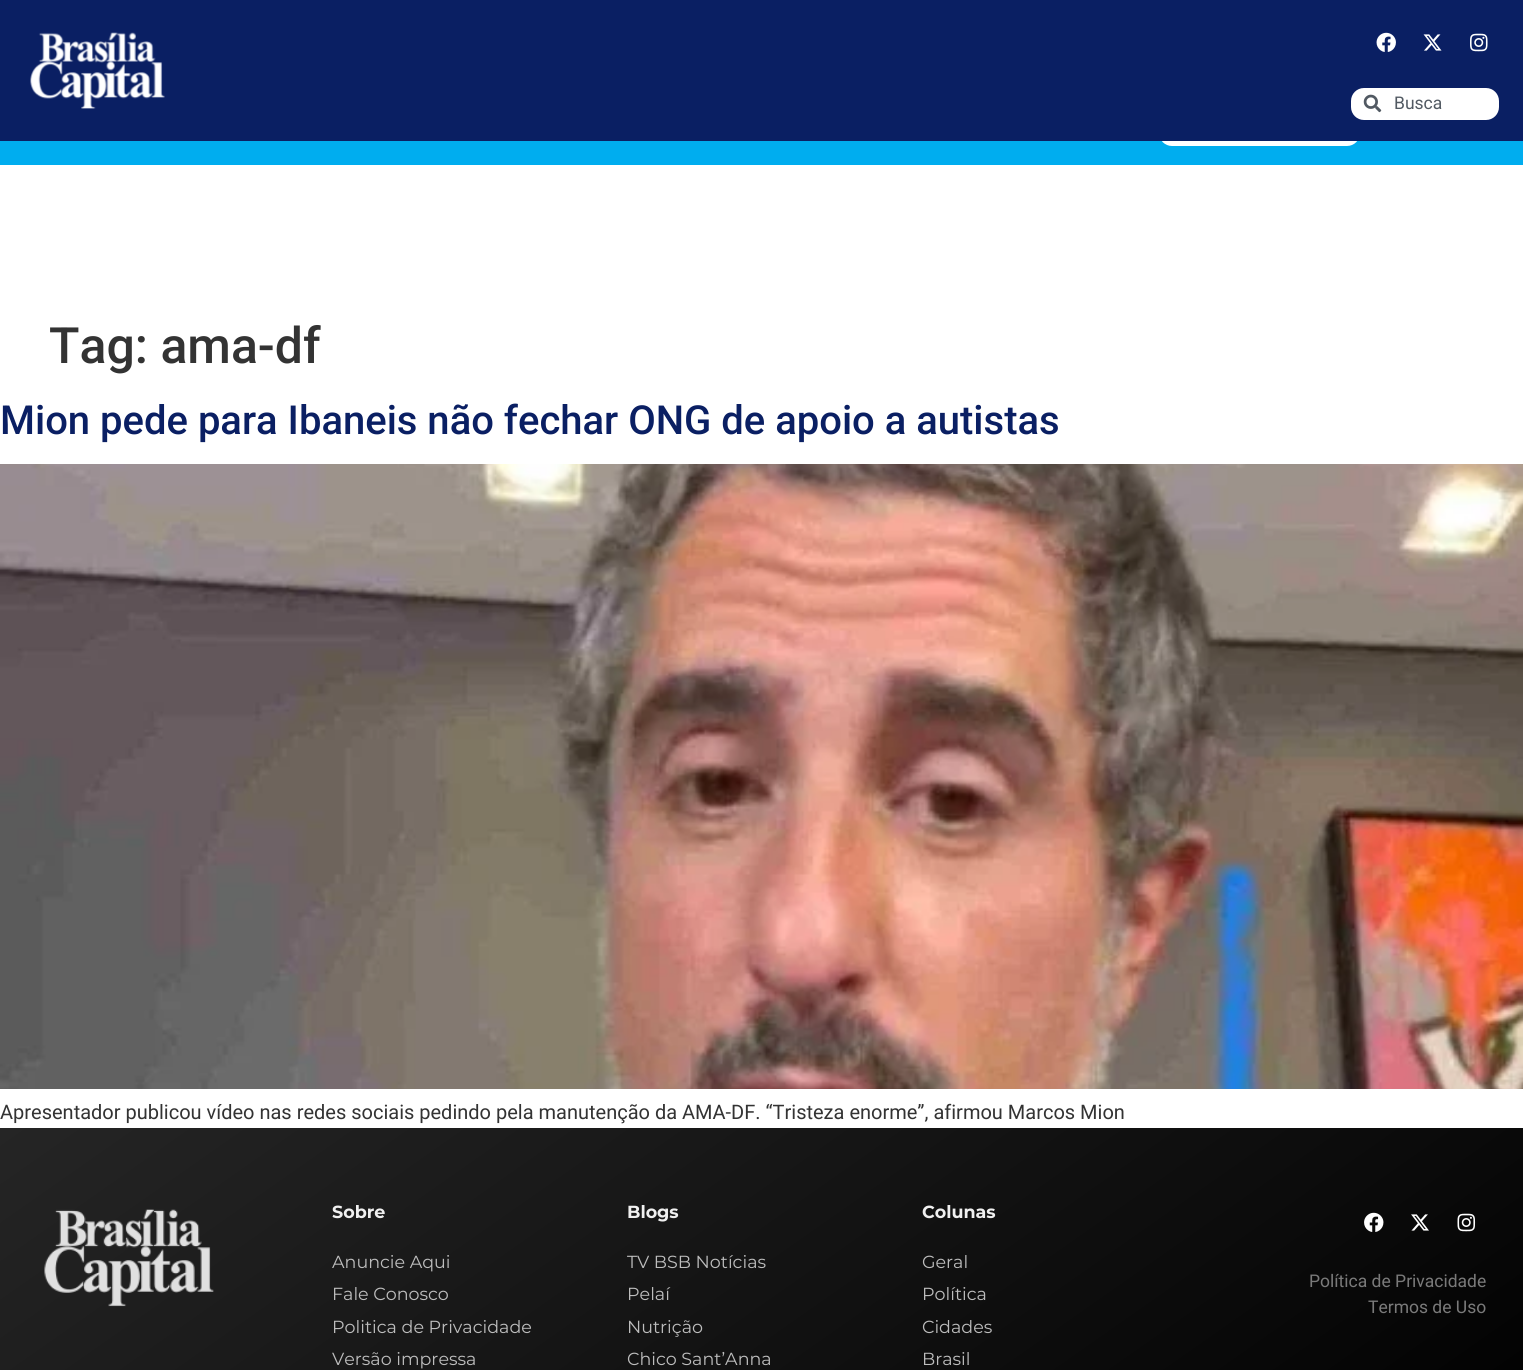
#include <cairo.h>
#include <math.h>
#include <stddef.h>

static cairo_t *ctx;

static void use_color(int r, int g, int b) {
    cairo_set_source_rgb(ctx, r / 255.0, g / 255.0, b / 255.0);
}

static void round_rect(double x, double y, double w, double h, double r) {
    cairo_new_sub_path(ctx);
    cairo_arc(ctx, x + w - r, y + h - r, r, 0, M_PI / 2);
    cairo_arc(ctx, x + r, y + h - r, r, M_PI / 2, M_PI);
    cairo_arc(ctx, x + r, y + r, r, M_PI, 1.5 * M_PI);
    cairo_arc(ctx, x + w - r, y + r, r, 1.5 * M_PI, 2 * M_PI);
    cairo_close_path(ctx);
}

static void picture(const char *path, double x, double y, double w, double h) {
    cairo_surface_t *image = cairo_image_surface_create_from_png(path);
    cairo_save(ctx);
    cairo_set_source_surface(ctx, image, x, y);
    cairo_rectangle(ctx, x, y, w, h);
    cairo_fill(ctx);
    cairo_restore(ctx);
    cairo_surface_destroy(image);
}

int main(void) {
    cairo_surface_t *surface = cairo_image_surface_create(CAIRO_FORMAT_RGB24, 1523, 1370);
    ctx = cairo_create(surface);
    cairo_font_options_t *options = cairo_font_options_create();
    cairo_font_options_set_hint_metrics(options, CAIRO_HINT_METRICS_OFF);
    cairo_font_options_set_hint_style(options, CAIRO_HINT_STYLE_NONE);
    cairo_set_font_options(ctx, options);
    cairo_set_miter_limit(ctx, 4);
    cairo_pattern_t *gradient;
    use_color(255, 255, 255);
    cairo_paint(ctx);
    use_color(0, 173, 239);
    cairo_rectangle(ctx, 0, 141, 1523, 24);
    cairo_fill(ctx);
    use_color(255, 255, 255);
    round_rect(1159, 114, 201, 32, 13);
    cairo_fill(ctx);
    use_color(10, 31, 99);
    cairo_rectangle(ctx, 0, 0, 1523, 141);
    cairo_fill(ctx);
    picture("img1.png", 30, 32, 135, 77);
    picture("img2.png", 1376, 32, 20, 20);
    picture("img3.png", 1423, 34, 19, 17);
    picture("img4.png", 1470, 33, 18, 19);
    use_color(255, 255, 255);
    round_rect(1351, 88, 148, 32, 13);
    cairo_fill(ctx);
    picture("img5.png", 1363, 94, 19, 19);
    cairo_select_font_face(ctx, "Roboto", CAIRO_FONT_SLANT_NORMAL, CAIRO_FONT_WEIGHT_NORMAL);
    cairo_set_font_size(ctx, 17.5);
    use_color(81, 89, 98);
    cairo_move_to(ctx, 1394, 109);
    cairo_show_text(ctx, "Busca");
    cairo_select_font_face(ctx, "Roboto Medium", CAIRO_FONT_SLANT_NORMAL, CAIRO_FONT_WEIGHT_NORMAL);
    cairo_set_font_size(ctx, 50);
    use_color(51, 51, 51);
    cairo_move_to(ctx, 49, 363);
    cairo_show_text(ctx, "Tag: ama-df");
    cairo_set_font_size(ctx, 40);
    use_color(10, 31, 99);
    cairo_move_to(ctx, 0, 434);
    cairo_show_text(ctx, "Mion pede para Ibaneis não fechar ONG de apoio a autistas");
    picture("img6.png", 0, 464, 1523, 625);
    cairo_select_font_face(ctx, "Roboto", CAIRO_FONT_SLANT_NORMAL, CAIRO_FONT_WEIGHT_NORMAL);
    cairo_set_font_size(ctx, 20);
    use_color(51, 51, 51);
    cairo_move_to(ctx, 0, 1119);
    cairo_show_text(ctx, "Apresentador publicou vídeo nas redes sociais pedindo pela manutenção da AMA-DF. “Tristeza enorme”, afirmou Marcos Mion");
    gradient = cairo_pattern_create_linear(428, 828, 1096, 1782);
    cairo_pattern_add_color_stop_rgba(gradient, 0, 0.145, 0.145, 0.145, 1);
    cairo_pattern_add_color_stop_rgba(gradient, 1, 0, 0, 0, 1);
    cairo_set_source(ctx, gradient);
    cairo_pattern_destroy(gradient);
    cairo_rectangle(ctx, 0, 1128, 1523, 242);
    cairo_fill(ctx);
    picture("img7.png", 44, 1209, 170, 98);
    cairo_select_font_face(ctx, "Montserrat", CAIRO_FONT_SLANT_NORMAL, CAIRO_FONT_WEIGHT_BOLD);
    cairo_set_font_size(ctx, 17.5);
    use_color(240, 240, 240);
    cairo_move_to(ctx, 332, 1218);
    cairo_show_text(ctx, "Sobre");
    cairo_select_font_face(ctx, "Montserrat", CAIRO_FONT_SLANT_NORMAL, CAIRO_FONT_WEIGHT_NORMAL);
    use_color(189, 189, 189);
    cairo_move_to(ctx, 332, 1268);
    cairo_show_text(ctx, "Anuncie Aqui");
    cairo_move_to(ctx, 332, 1300);
    cairo_show_text(ctx, "Fale Conosco");
    cairo_move_to(ctx, 332, 1333);
    cairo_show_text(ctx, "Politica de Privacidade");
    cairo_move_to(ctx, 332, 1365);
    cairo_show_text(ctx, "Versão impressa");
    cairo_select_font_face(ctx, "Montserrat", CAIRO_FONT_SLANT_NORMAL, CAIRO_FONT_WEIGHT_BOLD);
    use_color(240, 240, 240);
    cairo_move_to(ctx, 627, 1218);
    cairo_show_text(ctx, "Blogs");
    cairo_select_font_face(ctx, "Montserrat", CAIRO_FONT_SLANT_NORMAL, CAIRO_FONT_WEIGHT_NORMAL);
    use_color(189, 189, 189);
    cairo_move_to(ctx, 627, 1268);
    cairo_show_text(ctx, "TV BSB Notícias");
    cairo_move_to(ctx, 627, 1300);
    cairo_show_text(ctx, "Pelaí");
    cairo_move_to(ctx, 627, 1333);
    cairo_show_text(ctx, "Nutrição");
    cairo_move_to(ctx, 627, 1365);
    cairo_show_text(ctx, "Chico Sant’Anna");
    cairo_select_font_face(ctx, "Montserrat", CAIRO_FONT_SLANT_NORMAL, CAIRO_FONT_WEIGHT_BOLD);
    use_color(240, 240, 240);
    cairo_move_to(ctx, 922, 1218);
    cairo_show_text(ctx, "Colunas");
    cairo_select_font_face(ctx, "Montserrat", CAIRO_FONT_SLANT_NORMAL, CAIRO_FONT_WEIGHT_NORMAL);
    use_color(189, 189, 189);
    cairo_move_to(ctx, 922, 1268);
    cairo_show_text(ctx, "Geral");
    cairo_move_to(ctx, 922, 1300);
    cairo_show_text(ctx, "Política");
    cairo_move_to(ctx, 922, 1333);
    cairo_show_text(ctx, "Cidades");
    cairo_move_to(ctx, 922, 1365);
    cairo_show_text(ctx, "Brasil");
    picture("img8.png", 1364, 1212, 20, 20);
    picture("img9.png", 1411, 1214, 18, 17);
    picture("img10.png", 1457, 1213, 19, 19);
    cairo_select_font_face(ctx, "Roboto", CAIRO_FONT_SLANT_NORMAL, CAIRO_FONT_WEIGHT_NORMAL);
    use_color(122, 122, 122);
    cairo_move_to(ctx, 1309, 1287);
    cairo_show_text(ctx, "Política de Privacidade");
    cairo_move_to(ctx, 1368, 1313);
    cairo_show_text(ctx, "Termos de Uso");
    cairo_surface_write_to_png(surface, "result.png");
    cairo_font_options_destroy(options);
    cairo_destroy(ctx);
    cairo_surface_destroy(surface);
    return 0;
}
